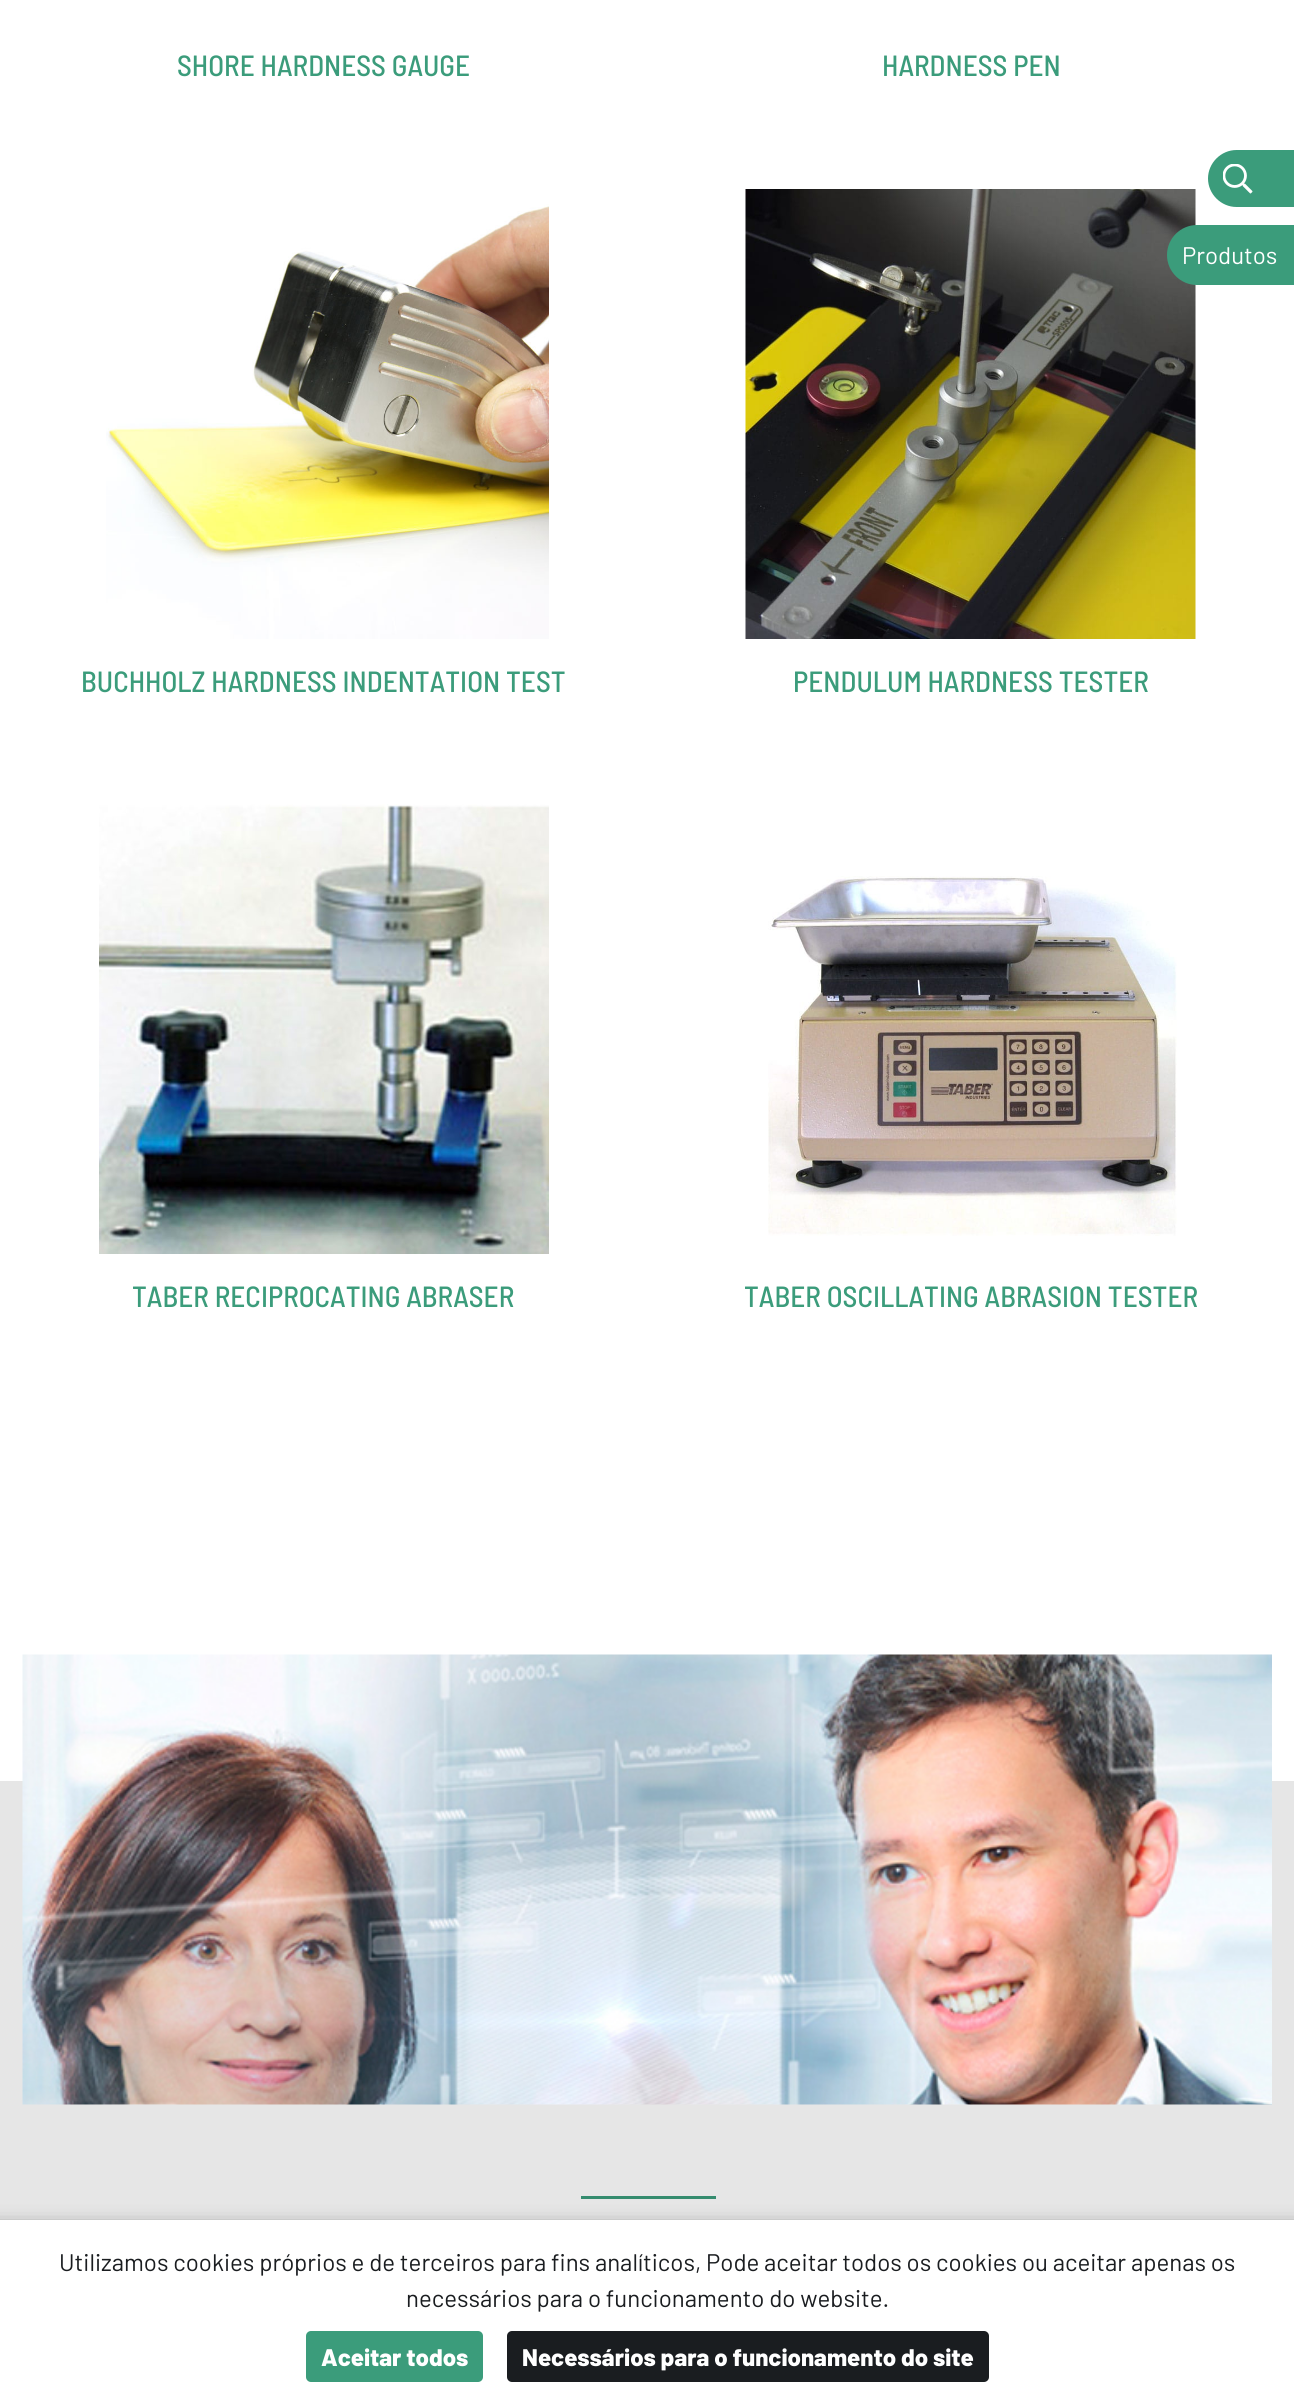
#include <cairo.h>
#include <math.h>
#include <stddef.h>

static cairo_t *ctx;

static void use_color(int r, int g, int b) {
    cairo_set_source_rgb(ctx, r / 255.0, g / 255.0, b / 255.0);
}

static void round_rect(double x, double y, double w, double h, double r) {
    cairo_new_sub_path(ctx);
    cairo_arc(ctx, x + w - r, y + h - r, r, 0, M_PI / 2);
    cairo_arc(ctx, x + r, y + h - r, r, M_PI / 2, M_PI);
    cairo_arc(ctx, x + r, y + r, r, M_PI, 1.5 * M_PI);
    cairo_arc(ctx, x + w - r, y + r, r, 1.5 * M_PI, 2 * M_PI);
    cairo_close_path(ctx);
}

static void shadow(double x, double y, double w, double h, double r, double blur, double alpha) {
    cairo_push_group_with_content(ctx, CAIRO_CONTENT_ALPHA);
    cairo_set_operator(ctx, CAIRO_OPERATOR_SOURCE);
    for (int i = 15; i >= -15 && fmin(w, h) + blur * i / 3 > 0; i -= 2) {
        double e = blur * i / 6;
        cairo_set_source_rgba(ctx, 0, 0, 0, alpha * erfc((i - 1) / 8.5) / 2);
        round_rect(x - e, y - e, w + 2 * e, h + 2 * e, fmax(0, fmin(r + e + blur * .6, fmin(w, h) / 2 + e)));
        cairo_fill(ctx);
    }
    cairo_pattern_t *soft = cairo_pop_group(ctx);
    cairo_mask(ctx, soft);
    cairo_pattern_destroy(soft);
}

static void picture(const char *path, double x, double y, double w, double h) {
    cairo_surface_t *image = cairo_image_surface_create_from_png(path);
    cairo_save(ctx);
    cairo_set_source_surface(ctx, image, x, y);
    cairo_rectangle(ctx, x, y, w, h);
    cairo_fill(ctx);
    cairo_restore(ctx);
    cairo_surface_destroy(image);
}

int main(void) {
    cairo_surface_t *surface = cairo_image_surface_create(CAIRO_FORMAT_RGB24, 1294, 2406);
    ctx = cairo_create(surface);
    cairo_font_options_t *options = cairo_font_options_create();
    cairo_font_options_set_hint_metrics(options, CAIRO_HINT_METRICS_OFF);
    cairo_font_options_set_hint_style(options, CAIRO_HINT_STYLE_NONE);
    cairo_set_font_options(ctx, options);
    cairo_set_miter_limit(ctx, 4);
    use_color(255, 255, 255);
    cairo_paint(ctx);
    cairo_select_font_face(ctx, "Barlow Semi Condensed Medium", CAIRO_FONT_SLANT_NORMAL, CAIRO_FONT_WEIGHT_NORMAL);
    cairo_set_font_size(ctx, 29.25);
    use_color(59, 156, 123);
    cairo_move_to(ctx, 177, 76);
    cairo_show_text(ctx, "SHORE HARDNESS GAUGE");
    cairo_move_to(ctx, 882, 76);
    cairo_show_text(ctx, "HARDNESS PEN");
    picture("img1.png", 106, 204, 443, 435);
    cairo_move_to(ctx, 81, 692);
    cairo_show_text(ctx, "BUCHHOLZ HARDNESS INDENTATION TEST");
    picture("img2.png", 745, 189, 451, 450);
    cairo_move_to(ctx, 793, 692);
    cairo_show_text(ctx, "PENDULUM HARDNESS TESTER");
    picture("img3.png", 99, 804, 450, 450);
    cairo_move_to(ctx, 132, 1307);
    cairo_show_text(ctx, "TABER RECIPROCATING ABRASER");
    picture("img4.png", 768, 876, 409, 360);
    cairo_move_to(ctx, 744, 1307);
    cairo_show_text(ctx, "TABER OSCILLATING ABRASION TESTER");
    cairo_new_path(ctx);
    cairo_move_to(ctx, 1236.5, 150);
    cairo_line_to(ctx, 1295, 150);
    cairo_line_to(ctx, 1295, 207);
    cairo_line_to(ctx, 1236.5, 207);
    cairo_curve_to(ctx, 1221, 207, 1208, 194, 1208, 178.5);
    cairo_curve_to(ctx, 1208, 163, 1221, 150, 1236.5, 150);
    cairo_close_path(ctx);
    cairo_fill(ctx);
    picture("img5.png", 1223, 164, 30, 30);
    cairo_new_path(ctx);
    cairo_move_to(ctx, 1197, 225);
    cairo_line_to(ctx, 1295, 225);
    cairo_line_to(ctx, 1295, 285);
    cairo_line_to(ctx, 1197, 285);
    cairo_curve_to(ctx, 1180.5, 285, 1167, 271.5, 1167, 255);
    cairo_curve_to(ctx, 1167, 238.5, 1180.5, 225, 1197, 225);
    cairo_close_path(ctx);
    cairo_fill(ctx);
    cairo_select_font_face(ctx, "Barlow", CAIRO_FONT_SLANT_NORMAL, CAIRO_FONT_WEIGHT_NORMAL);
    cairo_set_font_size(ctx, 24);
    use_color(255, 255, 255);
    cairo_move_to(ctx, 1182, 264);
    cairo_show_text(ctx, "Produtos");
    use_color(230, 230, 230);
    cairo_rectangle(ctx, 0, 1781, 1294, 439);
    cairo_fill(ctx);
    picture("img6.png", 22, 1654, 1250, 451);
    use_color(53, 140, 111);
    cairo_rectangle(ctx, 581, 2196, 135, 3);
    cairo_fill(ctx);
    use_color(0, 0, 0);
    shadow(-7, 2232, 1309, 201, 0, 11, 0.8);
    use_color(255, 255, 255);
    cairo_rectangle(ctx, 0, 2220, 1294, 186);
    cairo_fill(ctx);
    use_color(26, 29, 32);
    cairo_move_to(ctx, 59, 2271);
    cairo_show_text(ctx, "Utilizamos cookies próprios e de terceiros para fins analíticos, Pode aceitar todos os cookies ou aceitar apenas os");
    cairo_move_to(ctx, 406, 2307);
    cairo_show_text(ctx, "necessários para o funcionamento do website.");
    use_color(59, 156, 123);
    round_rect(306, 2331, 177, 51, 5);
    cairo_fill(ctx);
    cairo_select_font_face(ctx, "Barlow ExtraBold", CAIRO_FONT_SLANT_NORMAL, CAIRO_FONT_WEIGHT_NORMAL);
    use_color(255, 255, 255);
    cairo_move_to(ctx, 321, 2366);
    cairo_show_text(ctx, "Aceitar todos");
    use_color(26, 29, 32);
    round_rect(507, 2331, 482, 51, 5);
    cairo_fill(ctx);
    use_color(255, 255, 255);
    cairo_move_to(ctx, 522, 2366);
    cairo_show_text(ctx, "Necessários para o funcionamento do site");
    cairo_surface_write_to_png(surface, "result.png");
    cairo_font_options_destroy(options);
    cairo_destroy(ctx);
    cairo_surface_destroy(surface);
    return 0;
}
